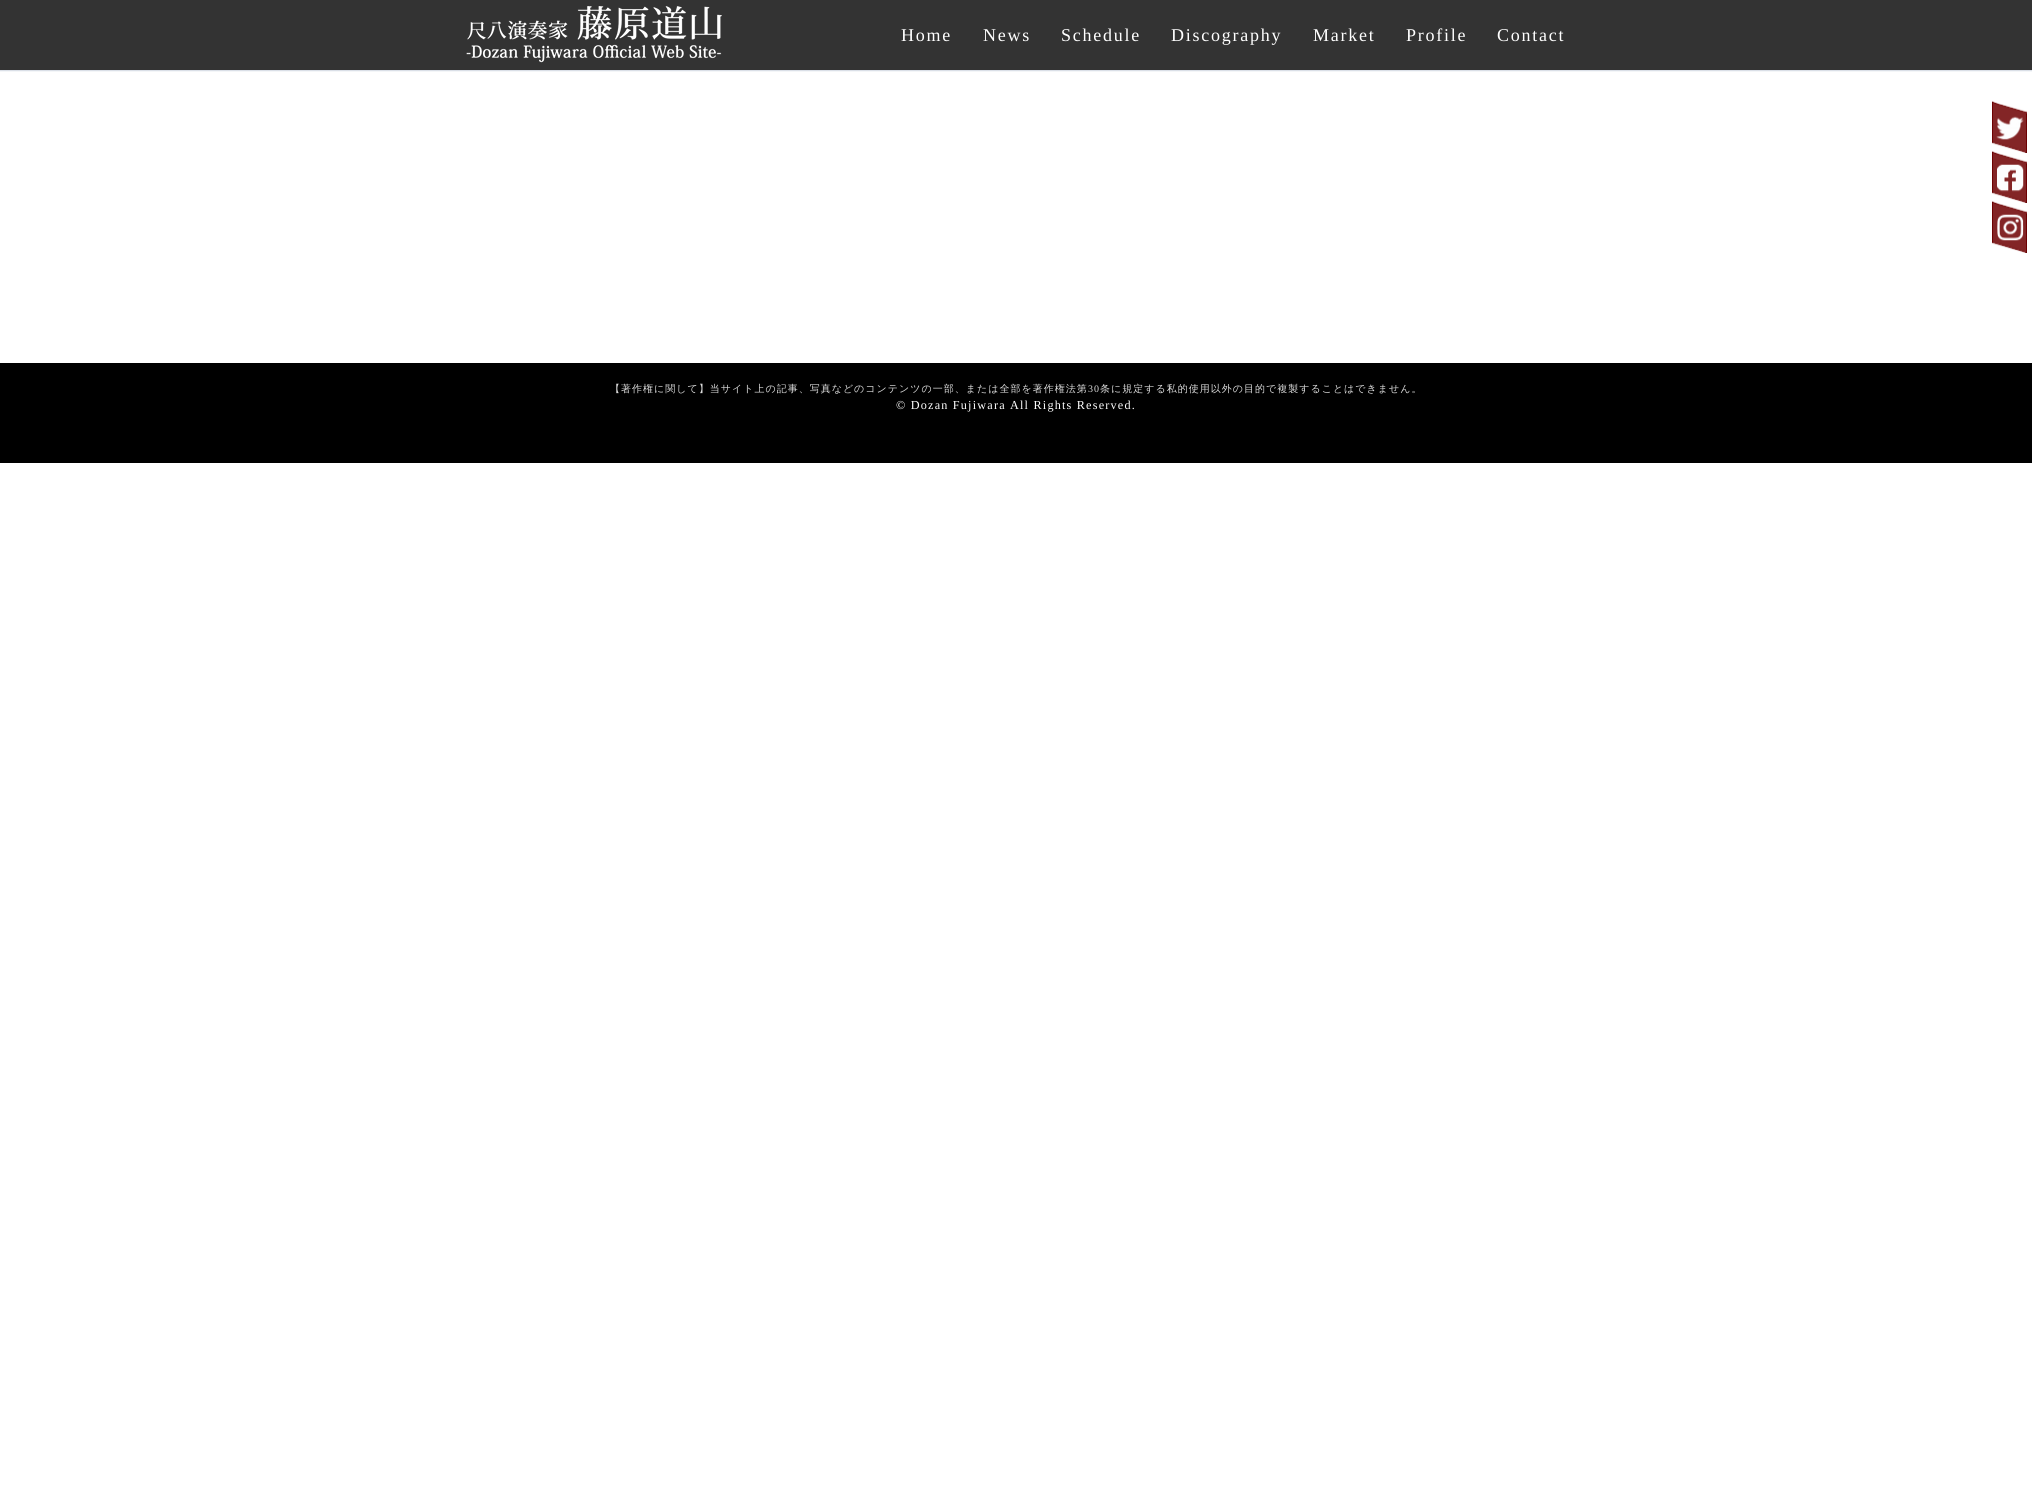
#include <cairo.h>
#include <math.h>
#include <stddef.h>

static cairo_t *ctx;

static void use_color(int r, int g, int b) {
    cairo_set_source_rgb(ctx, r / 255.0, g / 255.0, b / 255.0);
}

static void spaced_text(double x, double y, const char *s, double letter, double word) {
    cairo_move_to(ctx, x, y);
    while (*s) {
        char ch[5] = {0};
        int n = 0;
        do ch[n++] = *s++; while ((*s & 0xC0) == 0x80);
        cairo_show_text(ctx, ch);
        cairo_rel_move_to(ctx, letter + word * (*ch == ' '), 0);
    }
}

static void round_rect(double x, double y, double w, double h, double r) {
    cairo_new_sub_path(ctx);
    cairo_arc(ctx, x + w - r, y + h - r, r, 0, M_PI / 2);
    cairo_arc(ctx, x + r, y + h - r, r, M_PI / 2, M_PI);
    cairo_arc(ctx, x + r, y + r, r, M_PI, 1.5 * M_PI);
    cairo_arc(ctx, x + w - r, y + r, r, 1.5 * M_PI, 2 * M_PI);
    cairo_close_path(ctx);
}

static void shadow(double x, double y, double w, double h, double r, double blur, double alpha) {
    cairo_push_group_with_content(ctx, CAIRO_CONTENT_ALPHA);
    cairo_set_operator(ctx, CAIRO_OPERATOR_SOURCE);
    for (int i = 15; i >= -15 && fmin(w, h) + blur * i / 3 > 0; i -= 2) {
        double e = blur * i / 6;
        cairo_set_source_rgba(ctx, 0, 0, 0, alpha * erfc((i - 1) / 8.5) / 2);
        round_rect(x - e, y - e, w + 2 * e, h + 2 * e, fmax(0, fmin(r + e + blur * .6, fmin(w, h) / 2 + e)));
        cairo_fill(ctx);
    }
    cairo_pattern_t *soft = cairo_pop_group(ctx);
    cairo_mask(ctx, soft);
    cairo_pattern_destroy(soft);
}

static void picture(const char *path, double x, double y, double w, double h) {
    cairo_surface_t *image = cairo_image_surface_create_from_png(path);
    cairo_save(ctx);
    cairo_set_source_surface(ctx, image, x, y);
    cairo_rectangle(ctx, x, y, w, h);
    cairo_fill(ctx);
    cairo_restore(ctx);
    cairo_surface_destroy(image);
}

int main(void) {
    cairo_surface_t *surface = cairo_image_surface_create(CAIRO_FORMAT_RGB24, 2032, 1489);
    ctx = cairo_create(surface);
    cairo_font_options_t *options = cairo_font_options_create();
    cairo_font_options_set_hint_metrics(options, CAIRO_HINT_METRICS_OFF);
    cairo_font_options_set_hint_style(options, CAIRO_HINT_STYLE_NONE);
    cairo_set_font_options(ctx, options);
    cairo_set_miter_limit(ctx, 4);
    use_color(255, 255, 255);
    cairo_paint(ctx);
    use_color(113, 135, 164);
    shadow(-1, -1, 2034, 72, 0, 0.5, 0.3);
    use_color(51, 51, 51);
    cairo_rectangle(ctx, 0, 0, 2032, 70);
    cairo_fill(ctx);
    picture("img1.png", 466, 6, 256, 57);
    cairo_select_font_face(ctx, "Liberation Serif", CAIRO_FONT_SLANT_NORMAL, CAIRO_FONT_WEIGHT_NORMAL);
    cairo_set_font_size(ctx, 18);
    use_color(255, 255, 255);
    spaced_text(901, 41, "Home", 1.75, 0);
    spaced_text(983, 41, "News", 1.75, 0);
    spaced_text(1061, 41, "Schedule", 1.75, 0);
    spaced_text(1171, 41, "Discography", 1.75, 0);
    spaced_text(1313, 41, "Market", 1.75, 0);
    spaced_text(1406, 41, "Profile", 1.75, 0);
    spaced_text(1497, 41, "Contact", 1.75, 0);
    picture("img2.png", 1992, 101, 35, 52);
    picture("img3.png", 1992, 151, 35, 52);
    picture("img4.png", 1992, 201, 35, 52);
    use_color(0, 0, 0);
    cairo_rectangle(ctx, 0, 363, 2032, 100);
    cairo_fill(ctx);
    cairo_select_font_face(ctx, "WenQuanYi Zen Hei Medium", CAIRO_FONT_SLANT_NORMAL, CAIRO_FONT_WEIGHT_NORMAL);
    cairo_set_font_size(ctx, 10);
    use_color(219, 219, 219);
    spaced_text(610, 392, "【著作権に関して】当サイト上の記事、写真などのコンテンツの一部、または全部を著作権法第", 1, 0);
    cairo_select_font_face(ctx, "Liberation Serif", CAIRO_FONT_SLANT_NORMAL, CAIRO_FONT_WEIGHT_NORMAL);
    spaced_text(1088, 392, "30", 1, 0);
    cairo_select_font_face(ctx, "WenQuanYi Zen Hei Medium", CAIRO_FONT_SLANT_NORMAL, CAIRO_FONT_WEIGHT_NORMAL);
    spaced_text(1100, 392, "条に規定する私的使用以外の目的で複製することはできません。", 1, 0);
    cairo_select_font_face(ctx, "Liberation Serif", CAIRO_FONT_SLANT_NORMAL, CAIRO_FONT_WEIGHT_NORMAL);
    cairo_set_font_size(ctx, 12.2);
    use_color(255, 255, 255);
    spaced_text(896, 409, "© Dozan Fujiwara All Rights Reserved.", 1.2, 0);
    cairo_surface_write_to_png(surface, "result.png");
    cairo_font_options_destroy(options);
    cairo_destroy(ctx);
    cairo_surface_destroy(surface);
    return 0;
}
